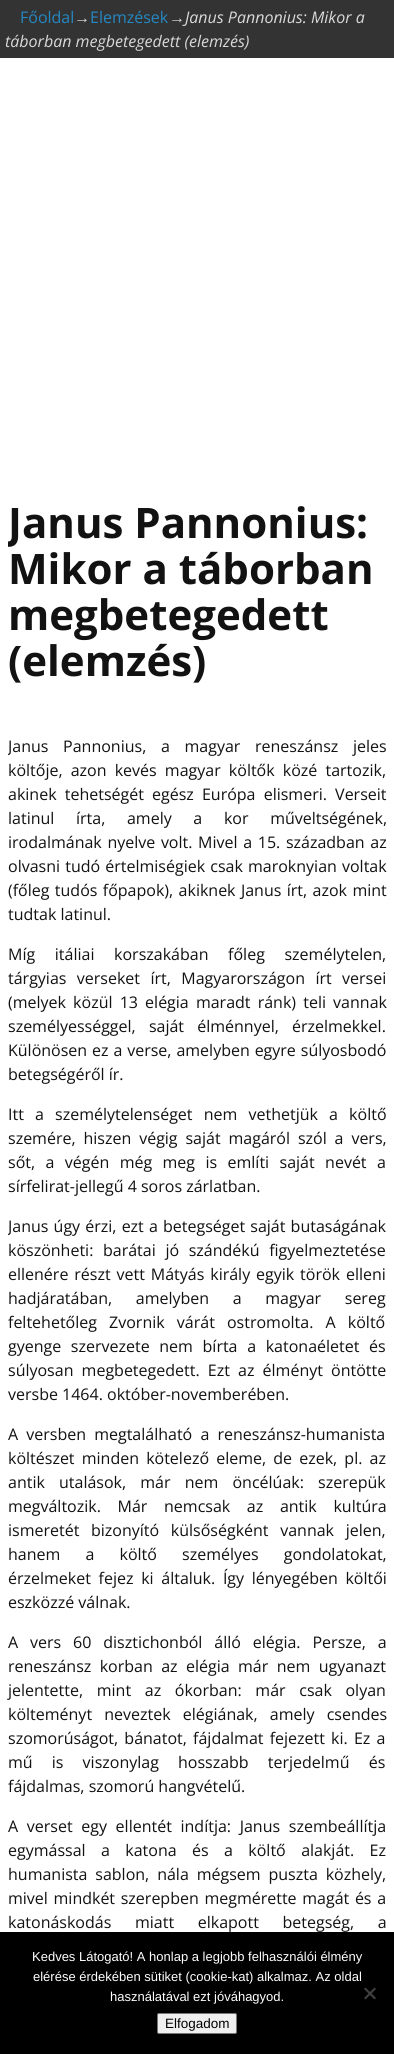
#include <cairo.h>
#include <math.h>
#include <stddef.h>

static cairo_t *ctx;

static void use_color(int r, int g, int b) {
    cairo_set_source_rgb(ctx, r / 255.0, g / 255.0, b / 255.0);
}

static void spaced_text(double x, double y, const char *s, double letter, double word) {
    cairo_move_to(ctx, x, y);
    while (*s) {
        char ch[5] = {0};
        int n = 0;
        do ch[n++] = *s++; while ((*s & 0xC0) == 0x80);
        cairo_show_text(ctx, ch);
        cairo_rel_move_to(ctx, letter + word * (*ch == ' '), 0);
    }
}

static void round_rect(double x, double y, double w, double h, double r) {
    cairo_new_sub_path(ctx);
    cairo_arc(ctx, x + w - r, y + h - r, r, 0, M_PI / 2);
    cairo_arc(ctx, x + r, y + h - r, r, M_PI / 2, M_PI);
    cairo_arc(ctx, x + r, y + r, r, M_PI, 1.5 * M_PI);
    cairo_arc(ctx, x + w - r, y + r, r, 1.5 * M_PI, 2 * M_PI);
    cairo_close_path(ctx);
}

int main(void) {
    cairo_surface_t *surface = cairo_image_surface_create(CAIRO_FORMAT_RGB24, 394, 2054);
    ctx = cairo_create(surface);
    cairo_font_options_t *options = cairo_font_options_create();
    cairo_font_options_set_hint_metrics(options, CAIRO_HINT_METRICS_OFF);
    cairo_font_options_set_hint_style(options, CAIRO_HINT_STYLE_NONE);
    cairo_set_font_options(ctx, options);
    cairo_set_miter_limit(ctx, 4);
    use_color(255, 255, 255);
    cairo_paint(ctx);
    use_color(51, 51, 51);
    cairo_rectangle(ctx, 0, 0, 394, 58);
    cairo_fill(ctx);
    cairo_select_font_face(ctx, "Open Sans", CAIRO_FONT_SLANT_NORMAL, CAIRO_FONT_WEIGHT_NORMAL);
    cairo_set_font_size(ctx, 16);
    use_color(37, 136, 194);
    cairo_move_to(ctx, 20, 23);
    cairo_show_text(ctx, "Főoldal");
    cairo_select_font_face(ctx, "Liberation Sans", CAIRO_FONT_SLANT_NORMAL, CAIRO_FONT_WEIGHT_NORMAL);
    use_color(217, 217, 217);
    cairo_move_to(ctx, 74, 23);
    cairo_show_text(ctx, "→");
    cairo_select_font_face(ctx, "Open Sans", CAIRO_FONT_SLANT_NORMAL, CAIRO_FONT_WEIGHT_NORMAL);
    use_color(37, 136, 194);
    cairo_move_to(ctx, 90, 23);
    cairo_show_text(ctx, "Elemzések");
    cairo_select_font_face(ctx, "Liberation Sans", CAIRO_FONT_SLANT_NORMAL, CAIRO_FONT_WEIGHT_NORMAL);
    use_color(217, 217, 217);
    cairo_move_to(ctx, 169, 23);
    cairo_show_text(ctx, "→");
    cairo_select_font_face(ctx, "Open Sans", CAIRO_FONT_SLANT_ITALIC, CAIRO_FONT_WEIGHT_NORMAL);
    cairo_move_to(ctx, 185, 23);
    cairo_show_text(ctx, "Janus Pannonius: Mikor a");
    cairo_move_to(ctx, 5, 47);
    cairo_show_text(ctx, "táborban megbetegedett (elemzés)");
    cairo_save(ctx);
    cairo_rectangle(ctx, 8, 473, 378, 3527);
    cairo_clip(ctx);
    cairo_select_font_face(ctx, "Open Sans", CAIRO_FONT_SLANT_NORMAL, CAIRO_FONT_WEIGHT_BOLD);
    cairo_set_font_size(ctx, 42);
    use_color(18, 18, 18);
    cairo_move_to(ctx, 8, 538);
    cairo_show_text(ctx, "Janus Pannonius:");
    cairo_restore(ctx);
    cairo_select_font_face(ctx, "Open Sans", CAIRO_FONT_SLANT_NORMAL, CAIRO_FONT_WEIGHT_BOLD);
    cairo_set_font_size(ctx, 42);
    use_color(18, 18, 18);
    cairo_move_to(ctx, 8, 584);
    cairo_show_text(ctx, "Mikor a táborban");
    cairo_move_to(ctx, 8, 630);
    cairo_show_text(ctx, "megbetegedett");
    cairo_move_to(ctx, 8, 676);
    cairo_show_text(ctx, "(elemzés)");
    cairo_save(ctx);
    cairo_rectangle(ctx, 8, 473, 378, 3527);
    cairo_clip(ctx);
    cairo_select_font_face(ctx, "Open Sans", CAIRO_FONT_SLANT_NORMAL, CAIRO_FONT_WEIGHT_NORMAL);
    cairo_set_font_size(ctx, 16);
    spaced_text(8, 752, "Janus Pannonius, a magyar reneszánsz jeles", 0, 10.5);
    cairo_restore(ctx);
    cairo_select_font_face(ctx, "Open Sans", CAIRO_FONT_SLANT_NORMAL, CAIRO_FONT_WEIGHT_NORMAL);
    cairo_set_font_size(ctx, 16);
    spaced_text(8, 776, "költője, azon kevés magyar költők közé tartozik,", 0, 4);
    spaced_text(8, 800, "akinek tehetségét egész Európa elismeri. Verseit", 0, 4);
    spaced_text(8, 824, "latinul írta, amely a kor műveltségének,", 0, 17.5);
    spaced_text(8, 848, "irodalmának nyelve volt. Mivel a 15. században az", 0, 1.5);
    spaced_text(8, 872, "olvasni tudó értelmiségiek csak maroknyian voltak", 0, 1);
    spaced_text(8, 896, "(főleg tudós főpapok), akiknek Janus írt, azok mint", 0, 1.25);
    cairo_move_to(ctx, 8, 920);
    cairo_show_text(ctx, "tudtak latinul.");
    spaced_text(8, 960, "Míg itáliai korszakában főleg személytelen,", 0, 15.5);
    spaced_text(8, 984, "tárgyias verseket írt, Magyarországon írt versei", 0, 6.25);
    spaced_text(8, 1008, "(melyek közül 13 elégia maradt ránk) teli vannak", 0, 3);
    spaced_text(8, 1032, "személyességgel, saját élménnyel, érzelmekkel.", 0, 9);
    spaced_text(8, 1056, "Különösen ez a verse, amelyben egyre súlyosbodó", 0, 0.75);
    cairo_move_to(ctx, 8, 1080);
    cairo_show_text(ctx, "betegségéről ír.");
    spaced_text(8, 1120, "Itt a személytelenséget nem vethetjük a költő", 0, 7);
    spaced_text(8, 1144, "szemére, hiszen végig saját magáról szól a vers,", 0, 3.75);
    spaced_text(8, 1168, "sőt, a végén még meg is említi saját nevét a", 0, 6.25);
    cairo_move_to(ctx, 8, 1192);
    cairo_show_text(ctx, "sírfelirat-jellegű 4 soros zárlatban.");
    cairo_save(ctx);
    cairo_rectangle(ctx, 8, 473, 378, 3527);
    cairo_clip(ctx);
    spaced_text(8, 1232, "Janus úgy érzi, ezt a betegséget saját butaságának", 0, 1);
    cairo_restore(ctx);
    spaced_text(8, 1256, "köszönheti: barátai jó szándékú figyelmeztetése", 0, 5.5);
    spaced_text(8, 1280, "ellenére részt vett Mátyás király egyik török elleni", 0, 1.75);
    spaced_text(8, 1304, "hadjáratában, amelyben a magyar sereg", 0, 19.5);
    spaced_text(8, 1328, "feltehetőleg Zvornik várát ostromolta. A költő", 0, 8);
    spaced_text(8, 1352, "gyenge szervezete nem bírta a katonaéletet és", 0, 5.5);
    spaced_text(8, 1376, "súlyosan megbetegedett. Ezt az élményt öntötte", 0, 4);
    cairo_move_to(ctx, 8, 1400);
    cairo_show_text(ctx, "versbe 1464. október-novemberében.");
    spaced_text(8, 1440, "A versben megtalálható a reneszánsz-humanista", 0, 4);
    spaced_text(8, 1464, "költészet minden kötelező eleme, de ezek, pl. az", 0, 3);
    spaced_text(8, 1488, "antik utalások, már nem öncélúak: szerepük", 0, 10);
    spaced_text(8, 1512, "megváltozik. Már nemcsak az antik kultúra", 0, 12.5);
    spaced_text(8, 1536, "ismeretét bizonyító külsőségként vannak jelen,", 0, 7.5);
    spaced_text(8, 1560, "hanem a költő személyes gondolatokat,", 0, 21);
    spaced_text(8, 1584, "érzelmeket fejez ki általuk. Így lényegében költői", 0, 3.5);
    cairo_move_to(ctx, 8, 1608);
    cairo_show_text(ctx, "eszközzé válnak.");
    spaced_text(8, 1648, "A vers 60 disztichonból álló elégia. Persze, a", 0, 7.75);
    spaced_text(8, 1672, "reneszánsz korban az elégia már nem ugyanazt", 0, 4.25);
    spaced_text(8, 1696, "jelentette, mint az ókorban: már csak olyan", 0, 9.5);
    spaced_text(8, 1720, "költeményt neveztek elégiának, amely csendes", 0, 8);
    spaced_text(8, 1744, "szomorúságot, bánatot, fájdalmat fejezett ki. Ez a", 0, 2);
    spaced_text(8, 1768, "mű is viszonylag hosszabb terjedelmű és", 0, 15);
    cairo_move_to(ctx, 8, 1792);
    cairo_show_text(ctx, "fájdalmas, szomorú hangvételű.");
    spaced_text(8, 1832, "A verset egy ellentét indítja: Janus szembeállítja", 0, 4.5);
    spaced_text(8, 1856, "egymással a katona és a költő alakját. Ez", 0, 11.25);
    spaced_text(8, 1880, "humanista sablon, nála mégsem puszta közhely,", 0, 3.75);
    spaced_text(8, 1904, "mivel mindkét szerepben megmérette magát és a", 0, 1.5);
    spaced_text(8, 1928, "katonáskodás miatt elkapott betegség, a", 0, 19.5);
    use_color(0, 0, 0);
    cairo_rectangle(ctx, 0, 1932, 394, 122);
    cairo_fill(ctx);
    cairo_select_font_face(ctx, "Liberation Sans", CAIRO_FONT_SLANT_NORMAL, CAIRO_FONT_WEIGHT_NORMAL);
    cairo_set_font_size(ctx, 13);
    use_color(255, 255, 255);
    cairo_move_to(ctx, 32, 1961);
    cairo_show_text(ctx, "Kedves Látogató! A honlap a legjobb felhasználói élmény");
    cairo_move_to(ctx, 33, 1981);
    cairo_show_text(ctx, "elérése érdekében sütiket (cookie-kat) alkalmaz. Az oldal");
    cairo_move_to(ctx, 110, 2001);
    cairo_show_text(ctx, "használatával ezt jóváhagyod.");
    use_color(64, 64, 64);
    cairo_new_path(ctx);
    cairo_move_to(ctx, 374.5, 1987.5);
    cairo_line_to(ctx, 376, 1989);
    cairo_line_to(ctx, 365.5, 1999.5);
    cairo_line_to(ctx, 364, 1998);
    cairo_close_path(ctx);
    cairo_fill(ctx);
    cairo_new_path(ctx);
    cairo_move_to(ctx, 364, 1989);
    cairo_line_to(ctx, 365.5, 1987.5);
    cairo_line_to(ctx, 376, 1998);
    cairo_line_to(ctx, 374.5, 1999.5);
    cairo_close_path(ctx);
    cairo_fill(ctx);
    use_color(239, 239, 239);
    round_rect(157.5, 2013.5, 79, 20, 1.5);
    cairo_fill_preserve(ctx);
    use_color(118, 118, 118);
    cairo_set_line_width(ctx, 1);
    cairo_stroke(ctx);
    cairo_set_font_size(ctx, 13.5);
    use_color(0, 0, 0);
    cairo_move_to(ctx, 165, 2028);
    cairo_show_text(ctx, "Elfogadom");
    cairo_surface_write_to_png(surface, "result.png");
    cairo_font_options_destroy(options);
    cairo_destroy(ctx);
    cairo_surface_destroy(surface);
    return 0;
}
